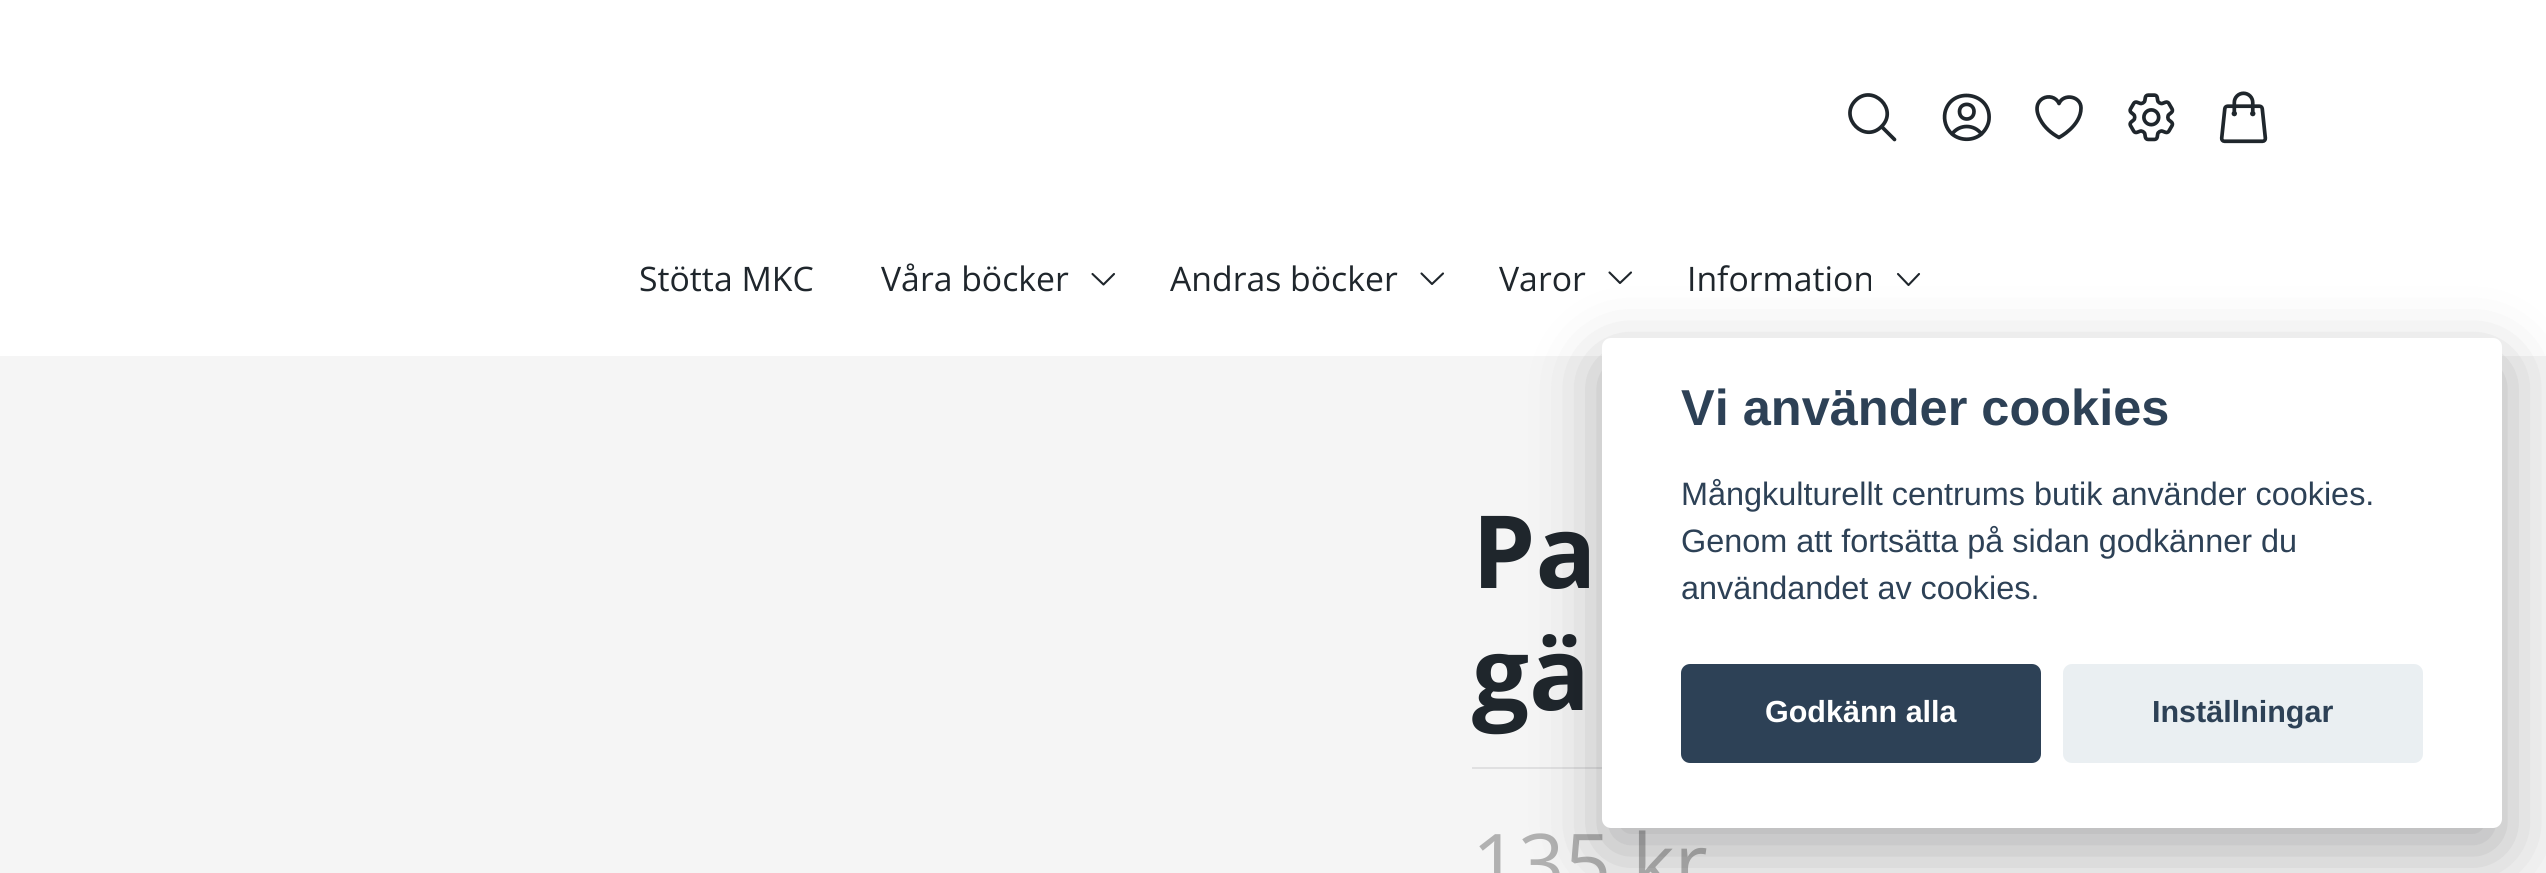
#include <cairo.h>
#include <math.h>
#include <stddef.h>

static cairo_t *ctx;

static void use_color(int r, int g, int b) {
    cairo_set_source_rgb(ctx, r / 255.0, g / 255.0, b / 255.0);
}

static void round_rect(double x, double y, double w, double h, double r) {
    cairo_new_sub_path(ctx);
    cairo_arc(ctx, x + w - r, y + h - r, r, 0, M_PI / 2);
    cairo_arc(ctx, x + r, y + h - r, r, M_PI / 2, M_PI);
    cairo_arc(ctx, x + r, y + r, r, M_PI, 1.5 * M_PI);
    cairo_arc(ctx, x + w - r, y + r, r, 1.5 * M_PI, 2 * M_PI);
    cairo_close_path(ctx);
}

static void shadow(double x, double y, double w, double h, double r, double blur, double alpha) {
    cairo_push_group_with_content(ctx, CAIRO_CONTENT_ALPHA);
    cairo_set_operator(ctx, CAIRO_OPERATOR_SOURCE);
    for (int i = 15; i >= -15 && fmin(w, h) + blur * i / 3 > 0; i -= 2) {
        double e = blur * i / 6;
        cairo_set_source_rgba(ctx, 0, 0, 0, alpha * erfc((i - 1) / 8.5) / 2);
        round_rect(x - e, y - e, w + 2 * e, h + 2 * e, fmax(0, fmin(r + e + blur * .6, fmin(w, h) / 2 + e)));
        cairo_fill(ctx);
    }
    cairo_pattern_t *soft = cairo_pop_group(ctx);
    cairo_mask(ctx, soft);
    cairo_pattern_destroy(soft);
}

static void picture(const char *path, double x, double y, double w, double h) {
    cairo_surface_t *image = cairo_image_surface_create_from_png(path);
    cairo_save(ctx);
    cairo_set_source_surface(ctx, image, x, y);
    cairo_rectangle(ctx, x, y, w, h);
    cairo_fill(ctx);
    cairo_restore(ctx);
    cairo_surface_destroy(image);
}

int main(void) {
    cairo_surface_t *surface = cairo_image_surface_create(CAIRO_FORMAT_RGB24, 2546, 873);
    ctx = cairo_create(surface);
    cairo_font_options_t *options = cairo_font_options_create();
    cairo_font_options_set_hint_metrics(options, CAIRO_HINT_METRICS_OFF);
    cairo_font_options_set_hint_style(options, CAIRO_HINT_STYLE_NONE);
    cairo_set_font_options(ctx, options);
    cairo_set_miter_limit(ctx, 4);
    use_color(245, 245, 245);
    cairo_paint(ctx);
    use_color(255, 255, 255);
    cairo_rectangle(ctx, 0, 0, 2546, 356);
    cairo_fill(ctx);
    cairo_new_path(ctx);
    cairo_move_to(ctx, 1894.5, 139.5);
    cairo_line_to(ctx, 1881.5, 126.5);
    cairo_move_to(ctx, 1881.5, 126.5);
    cairo_curve_to(ctx, 1899, 109.5, 1872.5, 83.5, 1855.5, 100.5);
    cairo_curve_to(ctx, 1838.5, 117.5, 1864.5, 144, 1881.5, 126.5);
    cairo_close_path(ctx);
    use_color(31, 38, 44);
    cairo_set_line_width(ctx, 3.7);
    cairo_set_line_cap(ctx, CAIRO_LINE_CAP_ROUND);
    cairo_set_line_join(ctx, CAIRO_LINE_JOIN_ROUND);
    cairo_stroke(ctx);
    cairo_new_path(ctx);
    cairo_move_to(ctx, 1981.5, 134);
    cairo_curve_to(ctx, 1974, 124, 1959.5, 124, 1952, 134);
    cairo_move_to(ctx, 1981.5, 134);
    cairo_curve_to(ctx, 1985.5, 130, 1988.5, 125, 1989, 119.5);
    cairo_curve_to(ctx, 1991.5, 92, 1951, 86, 1945, 112.5);
    cairo_curve_to(ctx, 1943.5, 120.5, 1946, 128.5, 1952, 134);
    cairo_move_to(ctx, 1981.5, 134);
    cairo_curve_to(ctx, 1973, 141, 1960.5, 141, 1952, 134);
    cairo_move_to(ctx, 1974, 111.5);
    cairo_curve_to(ctx, 1974, 121.5, 1959.5, 121.5, 1959.5, 111.5);
    cairo_curve_to(ctx, 1959.5, 102, 1974, 102, 1974, 111.5);
    cairo_close_path(ctx);
    cairo_stroke(ctx);
    cairo_new_path(ctx);
    cairo_move_to(ctx, 2081, 108);
    cairo_curve_to(ctx, 2081, 96, 2063.5, 93, 2059, 103.5);
    cairo_curve_to(ctx, 2053, 90, 2028, 98, 2040.5, 120);
    cairo_curve_to(ctx, 2044.5, 127.5, 2051.5, 133.5, 2059, 137.5);
    cairo_curve_to(ctx, 2059, 137.5, 2081, 126, 2081, 108);
    cairo_close_path(ctx);
    cairo_stroke(ctx);
    picture("img1.png", 2128, 93, 47, 49);
    picture("img2.png", 2219, 91, 49, 53);
    cairo_select_font_face(ctx, "Open Sans", CAIRO_FONT_SLANT_NORMAL, CAIRO_FONT_WEIGHT_NORMAL);
    cairo_set_font_size(ctx, 33.75);
    cairo_move_to(ctx, 639, 291);
    cairo_show_text(ctx, "Stötta MKC");
    cairo_move_to(ctx, 881, 291);
    cairo_show_text(ctx, "Våra böcker");
    cairo_new_path(ctx);
    cairo_move_to(ctx, 1114, 274);
    cairo_line_to(ctx, 1103.5, 284.5);
    cairo_line_to(ctx, 1092.5, 274);
    cairo_set_line_width(ctx, 2.1);
    cairo_stroke(ctx);
    cairo_move_to(ctx, 1170, 291);
    cairo_show_text(ctx, "Andras böcker");
    cairo_new_path(ctx);
    cairo_move_to(ctx, 1443, 273.5);
    cairo_line_to(ctx, 1432, 284);
    cairo_line_to(ctx, 1421.5, 273.5);
    cairo_stroke(ctx);
    cairo_move_to(ctx, 1499, 291);
    cairo_show_text(ctx, "Varor");
    cairo_new_path(ctx);
    cairo_move_to(ctx, 1631, 272.5);
    cairo_line_to(ctx, 1620, 283);
    cairo_line_to(ctx, 1609.5, 272.5);
    cairo_stroke(ctx);
    cairo_move_to(ctx, 1687, 291);
    cairo_show_text(ctx, "Information");
    cairo_new_path(ctx);
    cairo_move_to(ctx, 1919, 274);
    cairo_line_to(ctx, 1908.5, 285);
    cairo_line_to(ctx, 1898, 274);
    cairo_stroke(ctx);
    cairo_select_font_face(ctx, "Open Sans", CAIRO_FONT_SLANT_NORMAL, CAIRO_FONT_WEIGHT_BOLD);
    cairo_set_font_size(ctx, 101);
    cairo_move_to(ctx, 1472, 588);
    cairo_show_text(ctx, "Pa");
    cairo_move_to(ctx, 1472, 710);
    cairo_show_text(ctx, "gä");
    use_color(224, 224, 225);
    cairo_rectangle(ctx, 1472, 767, 130, 2);
    cairo_fill(ctx);
    cairo_select_font_face(ctx, "Open Sans", CAIRO_FONT_SLANT_NORMAL, CAIRO_FONT_WEIGHT_NORMAL);
    cairo_set_font_size(ctx, 81);
    use_color(177, 177, 177);
    cairo_move_to(ctx, 1472, 892);
    cairo_show_text(ctx, "135 kr");
    use_color(2, 2, 3);
    shadow(1602, 360, 900, 491, 9, 34, 0.28);
    use_color(255, 255, 255);
    round_rect(1602, 338, 900, 490, 9);
    cairo_fill(ctx);
    cairo_select_font_face(ctx, "Liberation Sans", CAIRO_FONT_SLANT_NORMAL, CAIRO_FONT_WEIGHT_BOLD);
    cairo_set_font_size(ctx, 50.5);
    use_color(45, 65, 86);
    cairo_move_to(ctx, 1681, 425);
    cairo_show_text(ctx, "Vi använder cookies");
    cairo_select_font_face(ctx, "Liberation Sans", CAIRO_FONT_SLANT_NORMAL, CAIRO_FONT_WEIGHT_NORMAL);
    cairo_set_font_size(ctx, 32.4);
    cairo_move_to(ctx, 1681, 505);
    cairo_show_text(ctx, "Mångkulturellt centrums butik använder cookies.");
    cairo_move_to(ctx, 1681, 552);
    cairo_show_text(ctx, "Genom att fortsätta på sidan godkänner du");
    cairo_move_to(ctx, 1681, 599);
    cairo_show_text(ctx, "användandet av cookies.");
    round_rect(1681, 664, 360, 99, 9);
    cairo_fill(ctx);
    cairo_select_font_face(ctx, "Liberation Sans", CAIRO_FONT_SLANT_NORMAL, CAIRO_FONT_WEIGHT_BOLD);
    cairo_set_font_size(ctx, 30.5);
    use_color(255, 255, 255);
    cairo_move_to(ctx, 1765, 722);
    cairo_show_text(ctx, "Godkänn alla");
    use_color(234, 239, 242);
    round_rect(2063, 664, 360, 99, 9);
    cairo_fill(ctx);
    use_color(45, 65, 86);
    cairo_move_to(ctx, 2152, 722);
    cairo_show_text(ctx, "Inställningar");
    cairo_surface_write_to_png(surface, "result.png");
    cairo_font_options_destroy(options);
    cairo_destroy(ctx);
    cairo_surface_destroy(surface);
    return 0;
}
